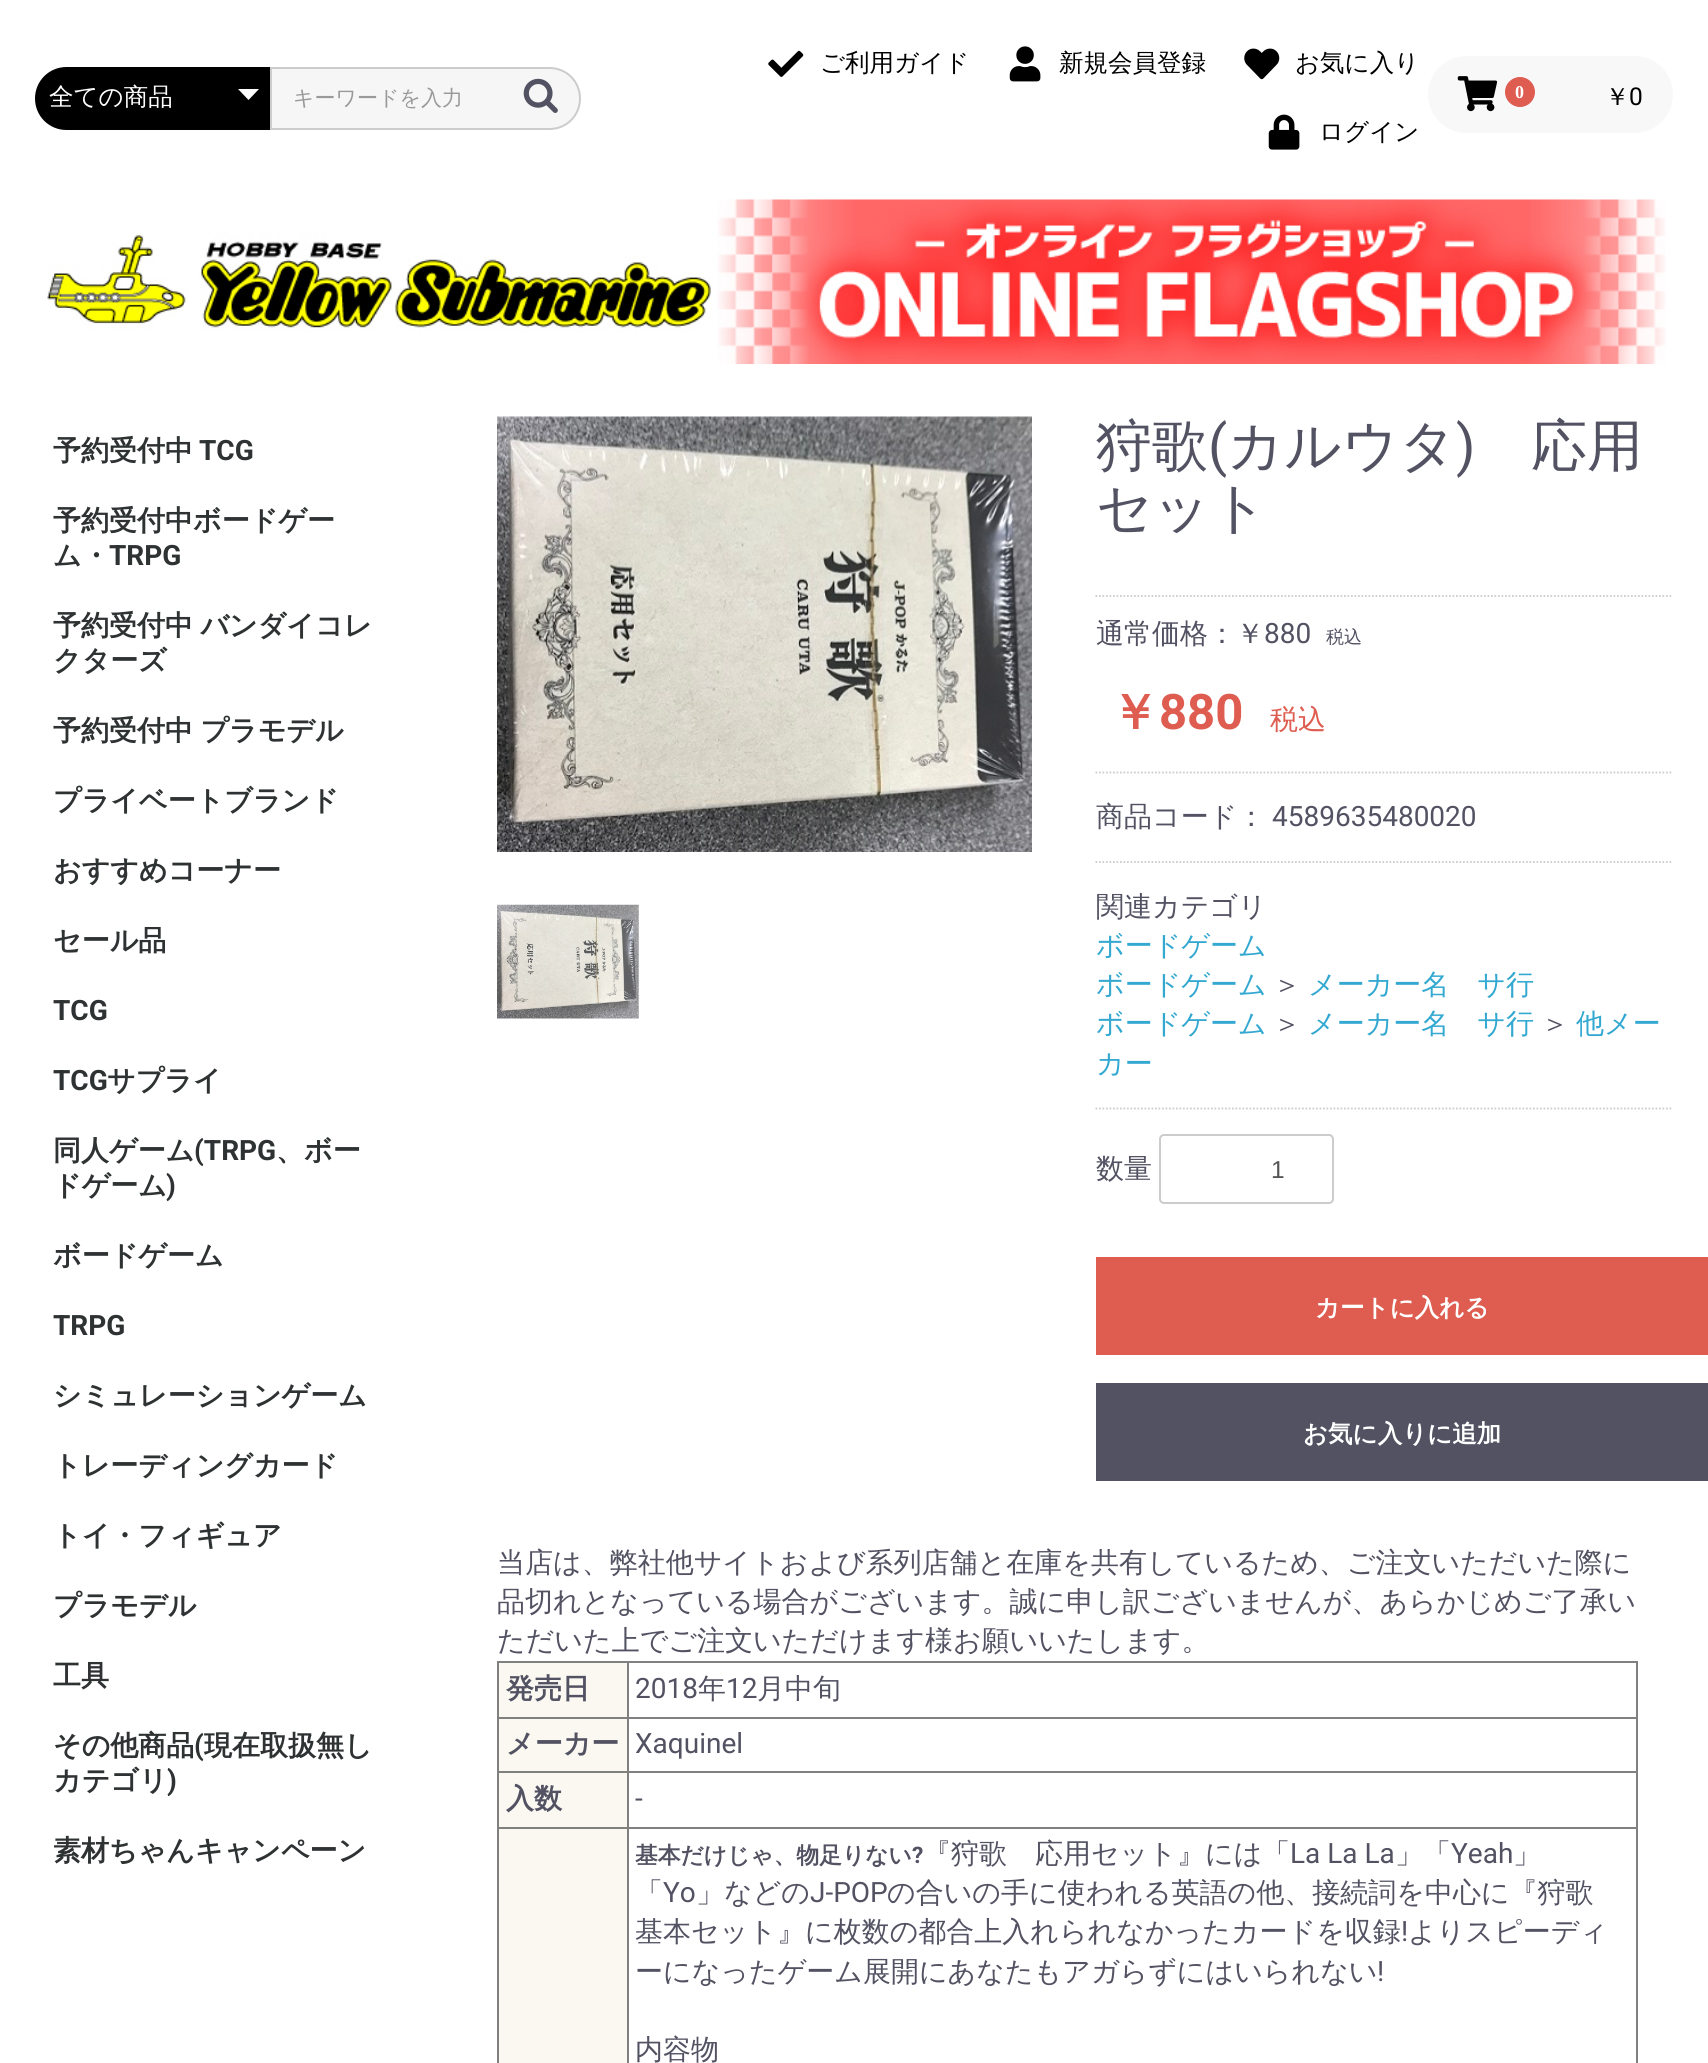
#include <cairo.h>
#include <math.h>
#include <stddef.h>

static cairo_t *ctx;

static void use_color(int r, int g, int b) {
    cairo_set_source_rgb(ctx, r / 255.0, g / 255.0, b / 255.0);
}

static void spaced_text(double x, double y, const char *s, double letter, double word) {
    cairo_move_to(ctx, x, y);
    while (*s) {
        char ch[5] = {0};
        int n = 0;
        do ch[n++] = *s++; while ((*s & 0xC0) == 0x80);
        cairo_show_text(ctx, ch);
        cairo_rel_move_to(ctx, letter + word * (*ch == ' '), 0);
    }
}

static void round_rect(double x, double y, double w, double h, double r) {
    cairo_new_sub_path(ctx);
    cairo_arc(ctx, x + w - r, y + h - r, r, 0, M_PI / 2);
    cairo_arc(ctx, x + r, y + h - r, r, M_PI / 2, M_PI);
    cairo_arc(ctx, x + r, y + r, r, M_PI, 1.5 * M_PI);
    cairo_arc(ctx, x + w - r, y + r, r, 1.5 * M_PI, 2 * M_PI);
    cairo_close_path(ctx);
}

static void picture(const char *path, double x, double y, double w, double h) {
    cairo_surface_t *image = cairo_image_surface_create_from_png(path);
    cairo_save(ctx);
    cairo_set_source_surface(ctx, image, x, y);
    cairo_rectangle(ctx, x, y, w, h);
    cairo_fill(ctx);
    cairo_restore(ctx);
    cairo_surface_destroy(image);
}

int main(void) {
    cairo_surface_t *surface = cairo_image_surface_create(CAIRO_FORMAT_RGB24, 1708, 2063);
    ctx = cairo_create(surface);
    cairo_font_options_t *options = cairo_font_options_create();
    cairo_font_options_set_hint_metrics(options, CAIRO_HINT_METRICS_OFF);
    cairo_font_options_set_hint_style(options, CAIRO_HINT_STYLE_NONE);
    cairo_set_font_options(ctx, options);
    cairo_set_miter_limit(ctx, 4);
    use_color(255, 255, 255);
    cairo_paint(ctx);
    use_color(0, 0, 0);
    cairo_new_path(ctx);
    cairo_move_to(ctx, 66.5, 67);
    cairo_line_to(ctx, 270, 67);
    cairo_line_to(ctx, 270, 130);
    cairo_line_to(ctx, 66.5, 130);
    cairo_curve_to(ctx, 49, 130, 35, 116, 35, 98.5);
    cairo_curve_to(ctx, 35, 81, 49, 67, 66.5, 67);
    cairo_close_path(ctx);
    cairo_fill(ctx);
    cairo_select_font_face(ctx, "WenQuanYi Zen Hei Medium", CAIRO_FONT_SLANT_NORMAL, CAIRO_FONT_WEIGHT_NORMAL);
    cairo_set_font_size(ctx, 24.5);
    use_color(255, 255, 255);
    cairo_move_to(ctx, 49, 105);
    cairo_show_text(ctx, "全ての商品");
    cairo_new_path(ctx);
    cairo_move_to(ctx, 238, 89);
    cairo_line_to(ctx, 259, 89);
    cairo_line_to(ctx, 248.5, 100);
    cairo_close_path(ctx);
    cairo_fill(ctx);
    use_color(246, 246, 246);
    cairo_new_path(ctx);
    cairo_move_to(ctx, 271, 68);
    cairo_line_to(ctx, 549.5, 68);
    cairo_curve_to(ctx, 566.5, 68, 580, 81.5, 580, 98.5);
    cairo_curve_to(ctx, 580, 115.5, 566.5, 129, 549.5, 129);
    cairo_line_to(ctx, 271, 129);
    cairo_close_path(ctx);
    cairo_fill_preserve(ctx);
    use_color(204, 204, 204);
    cairo_stroke(ctx);
    cairo_set_font_size(ctx, 21);
    use_color(153, 153, 153);
    cairo_move_to(ctx, 293, 105);
    cairo_show_text(ctx, "キーワードを入力");
    picture("img1.png", 523, 78, 35, 35);
    picture("img2.png", 768, 50, 36, 27);
    cairo_set_font_size(ctx, 24.5);
    use_color(0, 0, 0);
    cairo_move_to(ctx, 820, 71);
    cairo_show_text(ctx, "ご利用ガイド");
    picture("img3.png", 1009, 46, 32, 36);
    cairo_move_to(ctx, 1059, 71);
    cairo_show_text(ctx, "新規会員登録");
    picture("img4.png", 1244, 48, 36, 32);
    cairo_move_to(ctx, 1295, 71);
    cairo_show_text(ctx, "お気に入り");
    picture("img5.png", 1268, 114, 32, 36);
    cairo_move_to(ctx, 1319, 140);
    cairo_show_text(ctx, "ログイン");
    use_color(248, 248, 248);
    round_rect(1428, 56, 245, 77, 38.5);
    cairo_fill(ctx);
    picture("img6.png", 1457, 76, 41, 36);
    use_color(222, 93, 80);
    cairo_arc(ctx, 1520, 92, 15, 0, 2 * M_PI);
    cairo_fill(ctx);
    cairo_select_font_face(ctx, "Liberation Serif", CAIRO_FONT_SLANT_NORMAL, CAIRO_FONT_WEIGHT_BOLD);
    cairo_set_font_size(ctx, 18);
    use_color(255, 255, 255);
    cairo_move_to(ctx, 1515, 98);
    cairo_show_text(ctx, "0");
    cairo_select_font_face(ctx, "WenQuanYi Zen Hei Medium", CAIRO_FONT_SLANT_NORMAL, CAIRO_FONT_WEIGHT_NORMAL);
    cairo_set_font_size(ctx, 24.5);
    use_color(0, 0, 0);
    cairo_move_to(ctx, 1605, 105);
    cairo_show_text(ctx, "￥");
    cairo_select_font_face(ctx, "Roboto", CAIRO_FONT_SLANT_NORMAL, CAIRO_FONT_WEIGHT_NORMAL);
    cairo_move_to(ctx, 1629, 105);
    cairo_show_text(ctx, "0");
    picture("img7.png", 47, 199, 1619, 165);
    cairo_select_font_face(ctx, "WenQuanYi Zen Hei", CAIRO_FONT_SLANT_NORMAL, CAIRO_FONT_WEIGHT_BOLD);
    cairo_set_font_size(ctx, 28);
    use_color(46, 50, 51);
    cairo_move_to(ctx, 53, 460);
    cairo_show_text(ctx, "予約受付中");
    cairo_select_font_face(ctx, "Roboto", CAIRO_FONT_SLANT_NORMAL, CAIRO_FONT_WEIGHT_BOLD);
    cairo_move_to(ctx, 199, 460);
    cairo_show_text(ctx, "TCG");
    cairo_select_font_face(ctx, "WenQuanYi Zen Hei", CAIRO_FONT_SLANT_NORMAL, CAIRO_FONT_WEIGHT_BOLD);
    cairo_move_to(ctx, 53, 530);
    cairo_show_text(ctx, "予約受付中ボードゲー");
    cairo_move_to(ctx, 53, 565);
    cairo_show_text(ctx, "ム・");
    cairo_select_font_face(ctx, "Roboto", CAIRO_FONT_SLANT_NORMAL, CAIRO_FONT_WEIGHT_BOLD);
    cairo_move_to(ctx, 109, 565);
    cairo_show_text(ctx, "TRPG");
    cairo_select_font_face(ctx, "WenQuanYi Zen Hei", CAIRO_FONT_SLANT_NORMAL, CAIRO_FONT_WEIGHT_BOLD);
    spaced_text(53, 635, "予約受付中 バンダイコレ", 0, -1);
    cairo_move_to(ctx, 53, 670);
    cairo_show_text(ctx, "クターズ");
    spaced_text(53, 740, "予約受付中 プラモデル", 0, -1);
    cairo_move_to(ctx, 53, 810);
    cairo_show_text(ctx, "プライベートブランド");
    cairo_move_to(ctx, 53, 880);
    cairo_show_text(ctx, "おすすめコーナー");
    cairo_move_to(ctx, 53, 950);
    cairo_show_text(ctx, "セール品");
    cairo_select_font_face(ctx, "Roboto", CAIRO_FONT_SLANT_NORMAL, CAIRO_FONT_WEIGHT_BOLD);
    cairo_move_to(ctx, 53, 1020);
    cairo_show_text(ctx, "TCG");
    cairo_move_to(ctx, 53, 1090);
    cairo_show_text(ctx, "TCG");
    cairo_select_font_face(ctx, "WenQuanYi Zen Hei", CAIRO_FONT_SLANT_NORMAL, CAIRO_FONT_WEIGHT_BOLD);
    cairo_move_to(ctx, 107, 1090);
    cairo_show_text(ctx, "サプライ");
    cairo_move_to(ctx, 53, 1160);
    cairo_show_text(ctx, "同人ゲーム");
    cairo_select_font_face(ctx, "Roboto", CAIRO_FONT_SLANT_NORMAL, CAIRO_FONT_WEIGHT_BOLD);
    cairo_move_to(ctx, 194, 1160);
    cairo_show_text(ctx, "(TRPG");
    cairo_select_font_face(ctx, "WenQuanYi Zen Hei", CAIRO_FONT_SLANT_NORMAL, CAIRO_FONT_WEIGHT_BOLD);
    cairo_move_to(ctx, 276, 1160);
    cairo_show_text(ctx, "、ボー");
    cairo_move_to(ctx, 53, 1195);
    cairo_show_text(ctx, "ドゲーム");
    cairo_select_font_face(ctx, "Roboto", CAIRO_FONT_SLANT_NORMAL, CAIRO_FONT_WEIGHT_BOLD);
    cairo_move_to(ctx, 166, 1195);
    cairo_show_text(ctx, ")");
    cairo_select_font_face(ctx, "WenQuanYi Zen Hei", CAIRO_FONT_SLANT_NORMAL, CAIRO_FONT_WEIGHT_BOLD);
    cairo_move_to(ctx, 53, 1265);
    cairo_show_text(ctx, "ボードゲーム");
    cairo_select_font_face(ctx, "Roboto", CAIRO_FONT_SLANT_NORMAL, CAIRO_FONT_WEIGHT_BOLD);
    cairo_move_to(ctx, 53, 1335);
    cairo_show_text(ctx, "TRPG");
    cairo_select_font_face(ctx, "WenQuanYi Zen Hei", CAIRO_FONT_SLANT_NORMAL, CAIRO_FONT_WEIGHT_BOLD);
    cairo_move_to(ctx, 53, 1405);
    cairo_show_text(ctx, "シミュレーションゲーム");
    cairo_move_to(ctx, 53, 1475);
    cairo_show_text(ctx, "トレーディングカード");
    cairo_move_to(ctx, 53, 1545);
    cairo_show_text(ctx, "トイ・フィギュア");
    cairo_move_to(ctx, 53, 1615);
    cairo_show_text(ctx, "プラモデル");
    cairo_move_to(ctx, 53, 1685);
    cairo_show_text(ctx, "工具");
    cairo_move_to(ctx, 53, 1755);
    cairo_show_text(ctx, "その他商品");
    cairo_select_font_face(ctx, "Roboto", CAIRO_FONT_SLANT_NORMAL, CAIRO_FONT_WEIGHT_BOLD);
    cairo_move_to(ctx, 194, 1755);
    cairo_show_text(ctx, "(");
    cairo_select_font_face(ctx, "WenQuanYi Zen Hei", CAIRO_FONT_SLANT_NORMAL, CAIRO_FONT_WEIGHT_BOLD);
    cairo_move_to(ctx, 204, 1755);
    cairo_show_text(ctx, "現在取扱無し");
    cairo_move_to(ctx, 53, 1790);
    cairo_show_text(ctx, "カテゴリ");
    cairo_select_font_face(ctx, "Roboto", CAIRO_FONT_SLANT_NORMAL, CAIRO_FONT_WEIGHT_BOLD);
    cairo_move_to(ctx, 167, 1790);
    cairo_show_text(ctx, ")");
    cairo_select_font_face(ctx, "WenQuanYi Zen Hei", CAIRO_FONT_SLANT_NORMAL, CAIRO_FONT_WEIGHT_BOLD);
    cairo_move_to(ctx, 53, 1860);
    cairo_show_text(ctx, "素材ちゃんキャンペーン");
    picture("img8.png", 497, 416, 535, 436);
    picture("img9.png", 497, 904, 142, 115);
    cairo_select_font_face(ctx, "WenQuanYi Zen Hei Medium", CAIRO_FONT_SLANT_NORMAL, CAIRO_FONT_WEIGHT_NORMAL);
    cairo_set_font_size(ctx, 56);
    use_color(82, 82, 99);
    cairo_move_to(ctx, 1096, 465);
    cairo_show_text(ctx, "狩歌");
    cairo_select_font_face(ctx, "Roboto", CAIRO_FONT_SLANT_NORMAL, CAIRO_FONT_WEIGHT_NORMAL);
    cairo_move_to(ctx, 1208, 465);
    cairo_show_text(ctx, "(");
    cairo_select_font_face(ctx, "WenQuanYi Zen Hei Medium", CAIRO_FONT_SLANT_NORMAL, CAIRO_FONT_WEIGHT_NORMAL);
    cairo_move_to(ctx, 1227, 465);
    cairo_show_text(ctx, "カルウタ");
    cairo_select_font_face(ctx, "Roboto", CAIRO_FONT_SLANT_NORMAL, CAIRO_FONT_WEIGHT_NORMAL);
    cairo_move_to(ctx, 1456, 465);
    cairo_show_text(ctx, ")");
    cairo_select_font_face(ctx, "WenQuanYi Zen Hei Medium", CAIRO_FONT_SLANT_NORMAL, CAIRO_FONT_WEIGHT_NORMAL);
    cairo_move_to(ctx, 1531, 465);
    cairo_show_text(ctx, "応用");
    cairo_move_to(ctx, 1096, 527);
    cairo_show_text(ctx, "セット");
    cairo_new_path(ctx);
    cairo_move_to(ctx, 1095.5, 596);
    cairo_line_to(ctx, 1673, 596);
    use_color(204, 204, 204);
    cairo_set_line_width(ctx, 1.8);
    cairo_set_dash(ctx, (double[]){1.75, 1.75}, 2, 0);
    cairo_stroke(ctx);
    cairo_set_font_size(ctx, 28);
    use_color(82, 82, 99);
    cairo_move_to(ctx, 1096, 643);
    cairo_show_text(ctx, "通常価格：￥");
    cairo_select_font_face(ctx, "Roboto", CAIRO_FONT_SLANT_NORMAL, CAIRO_FONT_WEIGHT_NORMAL);
    cairo_move_to(ctx, 1264, 643);
    cairo_show_text(ctx, "880");
    cairo_select_font_face(ctx, "WenQuanYi Zen Hei Medium", CAIRO_FONT_SLANT_NORMAL, CAIRO_FONT_WEIGHT_NORMAL);
    cairo_set_font_size(ctx, 18);
    cairo_move_to(ctx, 1326, 643);
    cairo_show_text(ctx, "税込");
    cairo_new_path(ctx);
    cairo_move_to(ctx, 1095.5, 772.5);
    cairo_line_to(ctx, 1673, 772.5);
    use_color(204, 204, 204);
    cairo_stroke(ctx);
    cairo_select_font_face(ctx, "WenQuanYi Zen Hei", CAIRO_FONT_SLANT_NORMAL, CAIRO_FONT_WEIGHT_BOLD);
    cairo_set_font_size(ctx, 49);
    use_color(222, 93, 80);
    cairo_move_to(ctx, 1110, 729);
    cairo_show_text(ctx, "￥");
    cairo_select_font_face(ctx, "Roboto", CAIRO_FONT_SLANT_NORMAL, CAIRO_FONT_WEIGHT_BOLD);
    cairo_move_to(ctx, 1159, 729);
    cairo_show_text(ctx, "880");
    cairo_select_font_face(ctx, "WenQuanYi Zen Hei Medium", CAIRO_FONT_SLANT_NORMAL, CAIRO_FONT_WEIGHT_NORMAL);
    cairo_set_font_size(ctx, 28);
    cairo_move_to(ctx, 1270, 729);
    cairo_show_text(ctx, "税込");
    cairo_new_path(ctx);
    cairo_move_to(ctx, 1095.5, 862);
    cairo_line_to(ctx, 1673, 862);
    use_color(204, 204, 204);
    cairo_stroke(ctx);
    use_color(82, 82, 99);
    cairo_move_to(ctx, 1096, 826);
    cairo_show_text(ctx, "商品コード：");
    cairo_select_font_face(ctx, "Roboto", CAIRO_FONT_SLANT_NORMAL, CAIRO_FONT_WEIGHT_NORMAL);
    cairo_move_to(ctx, 1272, 826);
    cairo_show_text(ctx, "4589635480020");
    cairo_new_path(ctx);
    cairo_move_to(ctx, 1095.5, 1108.5);
    cairo_line_to(ctx, 1673, 1108.5);
    use_color(204, 204, 204);
    cairo_stroke(ctx);
    cairo_select_font_face(ctx, "WenQuanYi Zen Hei Medium", CAIRO_FONT_SLANT_NORMAL, CAIRO_FONT_WEIGHT_NORMAL);
    use_color(82, 82, 99);
    cairo_move_to(ctx, 1096, 916);
    cairo_show_text(ctx, "関連カテゴリ");
    use_color(51, 168, 208);
    cairo_move_to(ctx, 1096, 955);
    cairo_show_text(ctx, "ボードゲーム");
    cairo_move_to(ctx, 1096, 994);
    cairo_show_text(ctx, "ボードゲーム");
    use_color(82, 82, 99);
    cairo_move_to(ctx, 1273, 994);
    cairo_show_text(ctx, "＞");
    use_color(51, 168, 208);
    cairo_move_to(ctx, 1308, 994);
    cairo_show_text(ctx, "メーカー名　サ行");
    cairo_move_to(ctx, 1096, 1033);
    cairo_show_text(ctx, "ボードゲーム");
    use_color(82, 82, 99);
    cairo_move_to(ctx, 1273, 1033);
    cairo_show_text(ctx, "＞");
    use_color(51, 168, 208);
    cairo_move_to(ctx, 1308, 1033);
    cairo_show_text(ctx, "メーカー名　サ行");
    use_color(82, 82, 99);
    cairo_move_to(ctx, 1541, 1033);
    cairo_show_text(ctx, "＞");
    use_color(51, 168, 208);
    cairo_move_to(ctx, 1576, 1033);
    cairo_show_text(ctx, "他メー");
    cairo_move_to(ctx, 1096, 1073);
    cairo_show_text(ctx, "カー");
    use_color(82, 82, 99);
    cairo_move_to(ctx, 1096, 1178);
    cairo_show_text(ctx, "数量");
    round_rect(1160, 1135, 173, 68, 4);
    use_color(204, 204, 204);
    cairo_set_line_width(ctx, 2);
    cairo_set_dash(ctx, NULL, 0, 0);
    cairo_stroke(ctx);
    cairo_select_font_face(ctx, "Liberation Sans", CAIRO_FONT_SLANT_NORMAL, CAIRO_FONT_WEIGHT_NORMAL);
    cairo_set_font_size(ctx, 24.5);
    use_color(85, 85, 85);
    cairo_move_to(ctx, 1271, 1178);
    cairo_show_text(ctx, "1");
    use_color(222, 93, 80);
    cairo_rectangle(ctx, 1096, 1257, 612, 98);
    cairo_fill(ctx);
    cairo_select_font_face(ctx, "WenQuanYi Zen Hei", CAIRO_FONT_SLANT_NORMAL, CAIRO_FONT_WEIGHT_BOLD);
    use_color(255, 255, 255);
    cairo_move_to(ctx, 1315, 1316);
    cairo_show_text(ctx, "カートに入れる");
    use_color(82, 82, 99);
    cairo_rectangle(ctx, 1096, 1383, 612, 98);
    cairo_fill(ctx);
    use_color(255, 255, 255);
    cairo_move_to(ctx, 1303, 1442);
    cairo_show_text(ctx, "お気に入りに追加");
    cairo_select_font_face(ctx, "WenQuanYi Zen Hei Medium", CAIRO_FONT_SLANT_NORMAL, CAIRO_FONT_WEIGHT_NORMAL);
    cairo_set_font_size(ctx, 28);
    use_color(82, 82, 99);
    cairo_move_to(ctx, 497, 1572);
    cairo_show_text(ctx, "当店は、弊社他サイトおよび系列店舗と在庫を共有しているため、ご注文いただいた際に");
    cairo_move_to(ctx, 497, 1611);
    cairo_show_text(ctx, "品切れとなっている場合がございます。誠に申し訳ございませんが、あらかじめご了承い");
    cairo_move_to(ctx, 497, 1650);
    cairo_show_text(ctx, "ただいた上でご注文いただけます様お願いいたします。");
    use_color(128, 128, 128);
    cairo_rectangle(ctx, 497, 1661, 1141, 2);
    cairo_fill(ctx);
    cairo_rectangle(ctx, 1636, 1661, 2, 402);
    cairo_fill(ctx);
    cairo_rectangle(ctx, 497, 1661, 2, 402);
    cairo_fill(ctx);
    use_color(250, 248, 241);
    cairo_rectangle(ctx, 499, 1663, 128, 54);
    cairo_fill(ctx);
    cairo_select_font_face(ctx, "WenQuanYi Zen Hei", CAIRO_FONT_SLANT_NORMAL, CAIRO_FONT_WEIGHT_BOLD);
    use_color(82, 82, 99);
    cairo_move_to(ctx, 506, 1698);
    cairo_show_text(ctx, "発売日");
    use_color(128, 128, 128);
    cairo_rectangle(ctx, 627, 1717, 1011, 2);
    cairo_fill(ctx);
    cairo_rectangle(ctx, 627, 1771, 1011, 2);
    cairo_fill(ctx);
    cairo_rectangle(ctx, 627, 1827, 1011, 2);
    cairo_fill(ctx);
    cairo_rectangle(ctx, 627, 1827, 2, 236);
    cairo_fill(ctx);
    cairo_rectangle(ctx, 497, 1827, 131, 2);
    cairo_fill(ctx);
    cairo_rectangle(ctx, 627, 1771, 2, 58);
    cairo_fill(ctx);
    cairo_rectangle(ctx, 497, 1771, 131, 2);
    cairo_fill(ctx);
    cairo_rectangle(ctx, 627, 1717, 2, 56);
    cairo_fill(ctx);
    cairo_rectangle(ctx, 497, 1717, 131, 2);
    cairo_fill(ctx);
    cairo_rectangle(ctx, 627, 1661, 2, 58);
    cairo_fill(ctx);
    cairo_select_font_face(ctx, "Roboto", CAIRO_FONT_SLANT_NORMAL, CAIRO_FONT_WEIGHT_NORMAL);
    use_color(82, 82, 99);
    cairo_move_to(ctx, 635, 1698);
    cairo_show_text(ctx, "2018");
    cairo_select_font_face(ctx, "WenQuanYi Zen Hei Medium", CAIRO_FONT_SLANT_NORMAL, CAIRO_FONT_WEIGHT_NORMAL);
    cairo_move_to(ctx, 698, 1698);
    cairo_show_text(ctx, "年");
    cairo_select_font_face(ctx, "Roboto", CAIRO_FONT_SLANT_NORMAL, CAIRO_FONT_WEIGHT_NORMAL);
    cairo_move_to(ctx, 726, 1698);
    cairo_show_text(ctx, "12");
    cairo_select_font_face(ctx, "WenQuanYi Zen Hei Medium", CAIRO_FONT_SLANT_NORMAL, CAIRO_FONT_WEIGHT_NORMAL);
    cairo_move_to(ctx, 757, 1698);
    cairo_show_text(ctx, "月中旬");
    use_color(250, 248, 241);
    cairo_rectangle(ctx, 499, 1719, 128, 52);
    cairo_fill(ctx);
    cairo_select_font_face(ctx, "WenQuanYi Zen Hei", CAIRO_FONT_SLANT_NORMAL, CAIRO_FONT_WEIGHT_BOLD);
    use_color(82, 82, 99);
    cairo_move_to(ctx, 506, 1753);
    cairo_show_text(ctx, "メーカー");
    cairo_select_font_face(ctx, "Roboto", CAIRO_FONT_SLANT_NORMAL, CAIRO_FONT_WEIGHT_NORMAL);
    cairo_move_to(ctx, 635, 1753);
    cairo_show_text(ctx, "Xaquinel");
    use_color(250, 248, 241);
    cairo_rectangle(ctx, 499, 1773, 128, 54);
    cairo_fill(ctx);
    cairo_select_font_face(ctx, "WenQuanYi Zen Hei", CAIRO_FONT_SLANT_NORMAL, CAIRO_FONT_WEIGHT_BOLD);
    use_color(82, 82, 99);
    cairo_move_to(ctx, 506, 1808);
    cairo_show_text(ctx, "入数");
    cairo_select_font_face(ctx, "Roboto", CAIRO_FONT_SLANT_NORMAL, CAIRO_FONT_WEIGHT_NORMAL);
    cairo_move_to(ctx, 635, 1808);
    cairo_show_text(ctx, "-");
    use_color(250, 248, 241);
    cairo_rectangle(ctx, 499, 1829, 128, 234);
    cairo_fill(ctx);
    cairo_select_font_face(ctx, "WenQuanYi Zen Hei", CAIRO_FONT_SLANT_NORMAL, CAIRO_FONT_WEIGHT_BOLD);
    cairo_set_font_size(ctx, 22.75);
    use_color(82, 82, 99);
    cairo_move_to(ctx, 635, 1863);
    cairo_show_text(ctx, "基本だけじゃ、物足りない");
    cairo_select_font_face(ctx, "Roboto", CAIRO_FONT_SLANT_NORMAL, CAIRO_FONT_WEIGHT_BOLD);
    cairo_move_to(ctx, 912, 1863);
    cairo_show_text(ctx, "?");
    cairo_select_font_face(ctx, "WenQuanYi Zen Hei Medium", CAIRO_FONT_SLANT_NORMAL, CAIRO_FONT_WEIGHT_NORMAL);
    cairo_set_font_size(ctx, 28);
    cairo_move_to(ctx, 923, 1863);
    cairo_show_text(ctx, "『狩歌　応用セット』には「");
    cairo_select_font_face(ctx, "Roboto", CAIRO_FONT_SLANT_NORMAL, CAIRO_FONT_WEIGHT_NORMAL);
    cairo_move_to(ctx, 1290, 1863);
    cairo_show_text(ctx, "La La La");
    cairo_select_font_face(ctx, "WenQuanYi Zen Hei Medium", CAIRO_FONT_SLANT_NORMAL, CAIRO_FONT_WEIGHT_NORMAL);
    cairo_move_to(ctx, 1395, 1863);
    cairo_show_text(ctx, "」「");
    cairo_select_font_face(ctx, "Roboto", CAIRO_FONT_SLANT_NORMAL, CAIRO_FONT_WEIGHT_NORMAL);
    cairo_move_to(ctx, 1451, 1863);
    cairo_show_text(ctx, "Yeah");
    cairo_select_font_face(ctx, "WenQuanYi Zen Hei Medium", CAIRO_FONT_SLANT_NORMAL, CAIRO_FONT_WEIGHT_NORMAL);
    cairo_move_to(ctx, 1513, 1863);
    cairo_show_text(ctx, "」");
    cairo_move_to(ctx, 635, 1902);
    cairo_show_text(ctx, "「");
    cairo_select_font_face(ctx, "Roboto", CAIRO_FONT_SLANT_NORMAL, CAIRO_FONT_WEIGHT_NORMAL);
    cairo_move_to(ctx, 663, 1902);
    cairo_show_text(ctx, "Yo");
    cairo_select_font_face(ctx, "WenQuanYi Zen Hei Medium", CAIRO_FONT_SLANT_NORMAL, CAIRO_FONT_WEIGHT_NORMAL);
    cairo_move_to(ctx, 696, 1902);
    cairo_show_text(ctx, "」などの");
    cairo_select_font_face(ctx, "Roboto", CAIRO_FONT_SLANT_NORMAL, CAIRO_FONT_WEIGHT_NORMAL);
    cairo_move_to(ctx, 810, 1902);
    cairo_show_text(ctx, "J-POP");
    cairo_select_font_face(ctx, "WenQuanYi Zen Hei Medium", CAIRO_FONT_SLANT_NORMAL, CAIRO_FONT_WEIGHT_NORMAL);
    cairo_move_to(ctx, 887, 1902);
    cairo_show_text(ctx, "の合いの手に使われる英語の他、接続詞を中心に『狩歌");
    cairo_move_to(ctx, 635, 1941);
    cairo_show_text(ctx, "基本セット』に枚数の都合上入れられなかったカードを収録");
    cairo_select_font_face(ctx, "Roboto", CAIRO_FONT_SLANT_NORMAL, CAIRO_FONT_WEIGHT_NORMAL);
    cairo_move_to(ctx, 1401, 1941);
    cairo_show_text(ctx, "!");
    cairo_select_font_face(ctx, "WenQuanYi Zen Hei Medium", CAIRO_FONT_SLANT_NORMAL, CAIRO_FONT_WEIGHT_NORMAL);
    cairo_move_to(ctx, 1408, 1941);
    cairo_show_text(ctx, "よりスピーディ");
    cairo_move_to(ctx, 635, 1981);
    cairo_show_text(ctx, "ーになったゲーム展開にあなたもアガらずにはいられない");
    cairo_select_font_face(ctx, "Roboto", CAIRO_FONT_SLANT_NORMAL, CAIRO_FONT_WEIGHT_NORMAL);
    cairo_move_to(ctx, 1377, 1981);
    cairo_show_text(ctx, "!");
    cairo_select_font_face(ctx, "WenQuanYi Zen Hei Medium", CAIRO_FONT_SLANT_NORMAL, CAIRO_FONT_WEIGHT_NORMAL);
    cairo_move_to(ctx, 635, 2059);
    cairo_show_text(ctx, "内容物");
    cairo_surface_write_to_png(surface, "result.png");
    cairo_font_options_destroy(options);
    cairo_destroy(ctx);
    cairo_surface_destroy(surface);
    return 0;
}
